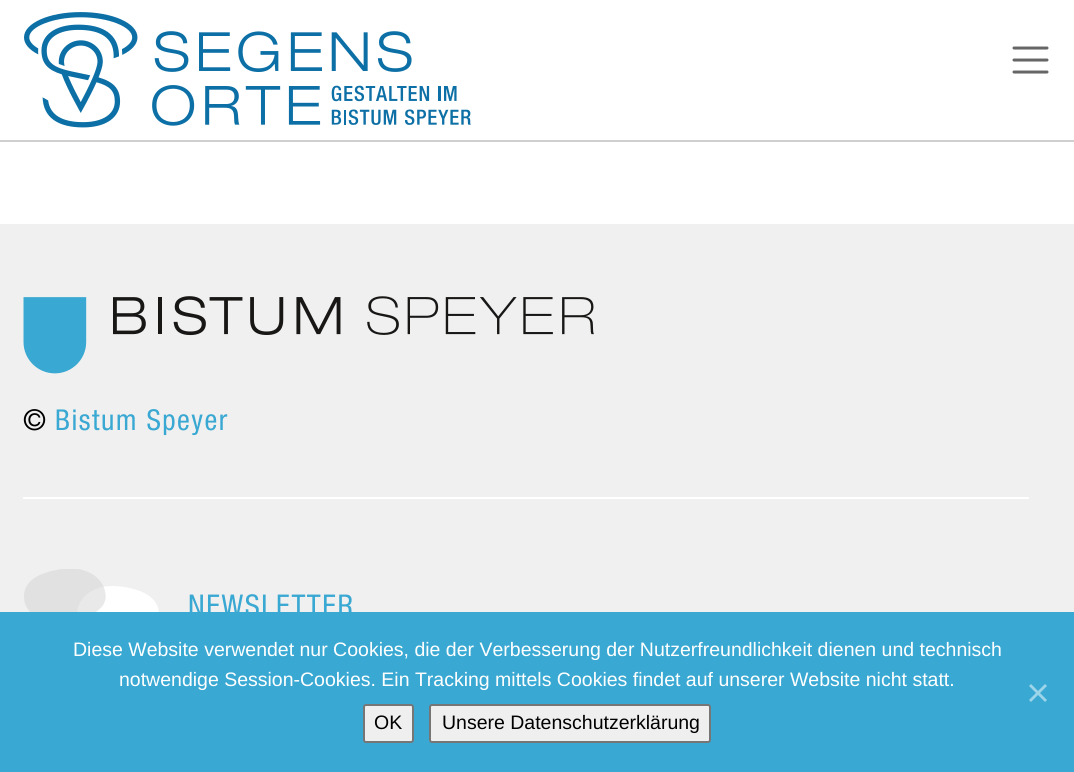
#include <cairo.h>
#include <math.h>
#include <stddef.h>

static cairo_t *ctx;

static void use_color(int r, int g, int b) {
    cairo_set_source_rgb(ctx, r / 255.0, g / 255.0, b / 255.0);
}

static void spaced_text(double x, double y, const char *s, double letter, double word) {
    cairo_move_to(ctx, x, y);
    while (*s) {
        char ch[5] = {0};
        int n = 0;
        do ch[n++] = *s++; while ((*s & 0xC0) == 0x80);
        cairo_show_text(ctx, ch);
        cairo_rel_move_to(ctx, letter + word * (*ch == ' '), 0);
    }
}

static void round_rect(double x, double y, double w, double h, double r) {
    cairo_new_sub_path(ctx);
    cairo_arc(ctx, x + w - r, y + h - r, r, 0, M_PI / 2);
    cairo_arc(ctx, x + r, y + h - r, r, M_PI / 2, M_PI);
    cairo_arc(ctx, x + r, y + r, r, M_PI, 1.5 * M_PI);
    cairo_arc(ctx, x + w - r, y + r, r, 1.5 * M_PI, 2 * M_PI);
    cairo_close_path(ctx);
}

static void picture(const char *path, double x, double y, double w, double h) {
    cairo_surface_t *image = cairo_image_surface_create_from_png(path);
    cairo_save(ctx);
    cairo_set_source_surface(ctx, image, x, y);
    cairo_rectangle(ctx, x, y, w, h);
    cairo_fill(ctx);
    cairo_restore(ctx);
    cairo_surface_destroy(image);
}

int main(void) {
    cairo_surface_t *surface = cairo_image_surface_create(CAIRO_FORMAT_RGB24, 1074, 772);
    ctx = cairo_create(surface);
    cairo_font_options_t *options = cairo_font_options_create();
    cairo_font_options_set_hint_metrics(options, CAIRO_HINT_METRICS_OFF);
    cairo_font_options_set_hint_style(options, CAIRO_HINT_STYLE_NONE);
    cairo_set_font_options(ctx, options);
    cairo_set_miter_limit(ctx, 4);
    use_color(255, 255, 255);
    cairo_paint(ctx);
    use_color(207, 207, 207);
    cairo_rectangle(ctx, 0, 140, 1074, 2);
    cairo_fill(ctx);
    picture("img1.png", 24, 12, 447, 116);
    cairo_new_path(ctx);
    cairo_move_to(ctx, 1014, 48);
    cairo_line_to(ctx, 1047, 48);
    cairo_move_to(ctx, 1014, 60);
    cairo_line_to(ctx, 1047, 60);
    cairo_move_to(ctx, 1014, 72);
    cairo_line_to(ctx, 1047, 72);
    use_color(102, 102, 102);
    cairo_set_line_width(ctx, 3);
    cairo_set_line_cap(ctx, CAIRO_LINE_CAP_ROUND);
    cairo_stroke(ctx);
    use_color(240, 240, 240);
    cairo_rectangle(ctx, 0, 224, 1074, 388);
    cairo_fill(ctx);
    picture("img2.png", 23, 296, 571, 78);
    cairo_select_font_face(ctx, "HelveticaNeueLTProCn", CAIRO_FONT_SLANT_NORMAL, CAIRO_FONT_WEIGHT_NORMAL);
    cairo_set_font_size(ctx, 28.75);
    use_color(0, 0, 0);
    spaced_text(23, 430, "©", 1.5, 0);
    use_color(57, 168, 210);
    spaced_text(55, 430, "Bistum Speyer", 1.5, 0);
    use_color(255, 255, 255);
    cairo_rectangle(ctx, 23, 497, 1006, 2);
    cairo_fill(ctx);
    picture("img3.png", 24, 569, 135, 43);
    cairo_set_font_size(ctx, 30);
    use_color(57, 168, 210);
    spaced_text(188, 616, "NEWSLETTER", 1.5, 0);
    cairo_rectangle(ctx, 0, 612, 1074, 160);
    cairo_fill(ctx);
    cairo_select_font_face(ctx, "Liberation Sans", CAIRO_FONT_SLANT_NORMAL, CAIRO_FONT_WEIGHT_NORMAL);
    cairo_set_font_size(ctx, 19.5);
    use_color(255, 255, 255);
    cairo_move_to(ctx, 73, 656);
    cairo_show_text(ctx, "Diese Website verwendet nur Cookies, die der Verbesserung der Nutzerfreundlichkeit dienen und technisch");
    cairo_move_to(ctx, 119, 686);
    cairo_show_text(ctx, "notwendige Session-Cookies. Ein Tracking mittels Cookies findet auf unserer Website nicht statt.");
    use_color(156, 212, 233);
    cairo_new_path(ctx);
    cairo_move_to(ctx, 1045, 684);
    cairo_line_to(ctx, 1047, 686);
    cairo_line_to(ctx, 1031, 702);
    cairo_line_to(ctx, 1029, 700);
    cairo_close_path(ctx);
    cairo_fill(ctx);
    cairo_new_path(ctx);
    cairo_move_to(ctx, 1029, 686);
    cairo_line_to(ctx, 1031, 684);
    cairo_line_to(ctx, 1047, 700);
    cairo_line_to(ctx, 1045, 702);
    cairo_close_path(ctx);
    cairo_fill(ctx);
    use_color(239, 239, 239);
    round_rect(364, 705, 49, 37, 2);
    cairo_fill_preserve(ctx);
    use_color(118, 118, 118);
    cairo_set_line_width(ctx, 2);
    cairo_set_line_cap(ctx, CAIRO_LINE_CAP_BUTT);
    cairo_stroke(ctx);
    use_color(0, 0, 0);
    cairo_move_to(ctx, 374, 729);
    cairo_show_text(ctx, "OK");
    use_color(239, 239, 239);
    round_rect(430, 705, 280, 37, 2);
    cairo_fill_preserve(ctx);
    use_color(118, 118, 118);
    cairo_stroke(ctx);
    use_color(0, 0, 0);
    cairo_move_to(ctx, 442, 729);
    cairo_show_text(ctx, "Unsere Datenschutzerklärung");
    cairo_surface_write_to_png(surface, "result.png");
    cairo_font_options_destroy(options);
    cairo_destroy(ctx);
    cairo_surface_destroy(surface);
    return 0;
}
